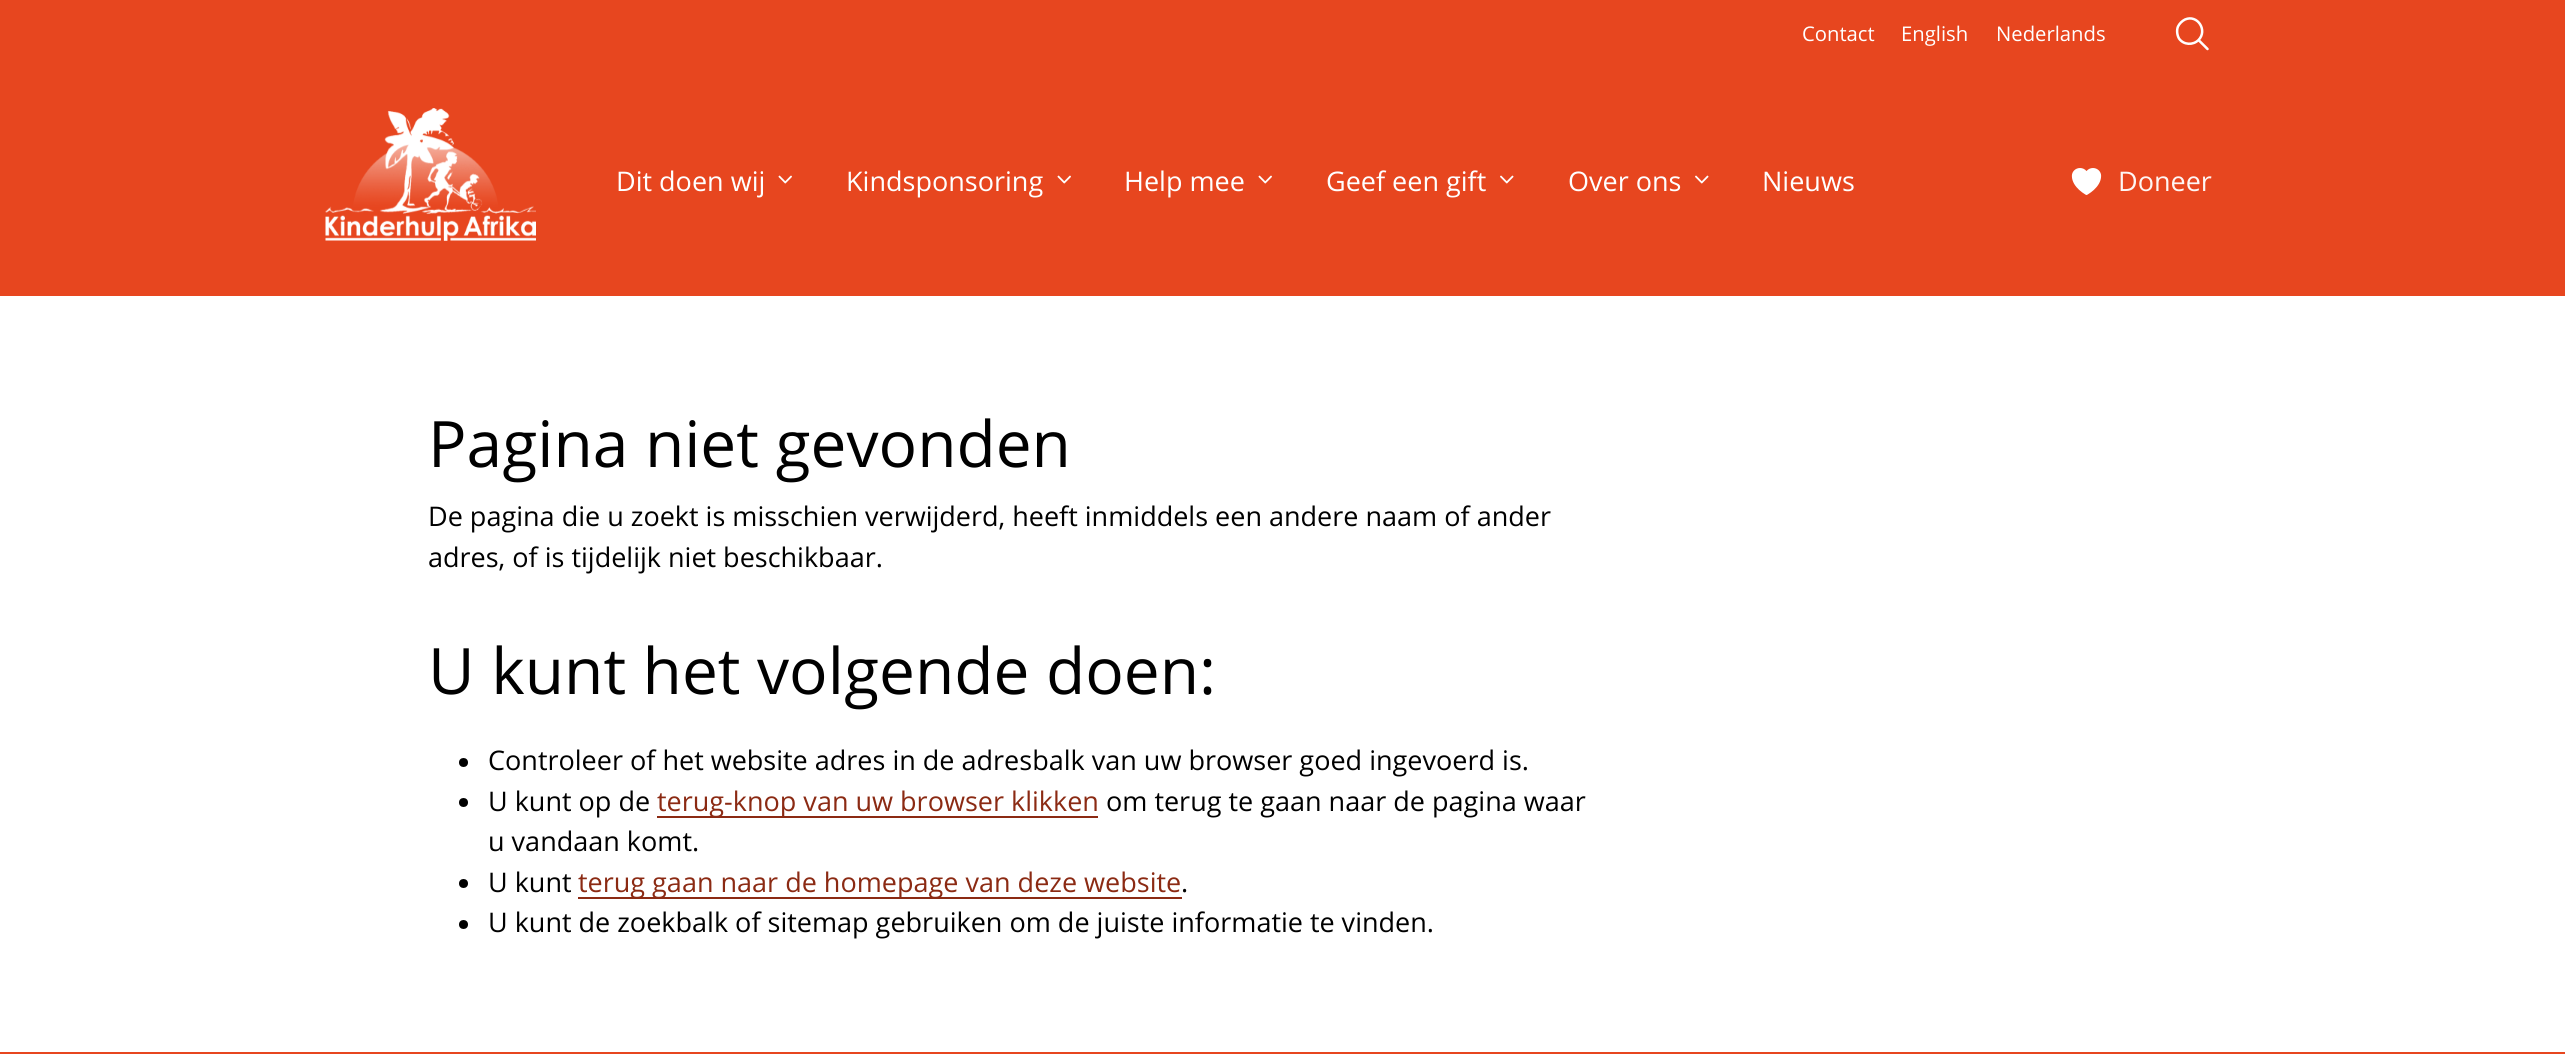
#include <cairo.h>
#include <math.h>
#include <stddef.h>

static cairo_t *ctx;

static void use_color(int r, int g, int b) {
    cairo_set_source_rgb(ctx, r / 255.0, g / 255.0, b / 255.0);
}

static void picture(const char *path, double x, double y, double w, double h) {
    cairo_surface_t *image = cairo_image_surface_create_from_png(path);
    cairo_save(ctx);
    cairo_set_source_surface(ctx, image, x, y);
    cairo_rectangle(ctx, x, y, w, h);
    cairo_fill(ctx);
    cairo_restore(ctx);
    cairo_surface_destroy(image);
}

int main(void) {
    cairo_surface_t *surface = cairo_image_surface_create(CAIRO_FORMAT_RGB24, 2565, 1054);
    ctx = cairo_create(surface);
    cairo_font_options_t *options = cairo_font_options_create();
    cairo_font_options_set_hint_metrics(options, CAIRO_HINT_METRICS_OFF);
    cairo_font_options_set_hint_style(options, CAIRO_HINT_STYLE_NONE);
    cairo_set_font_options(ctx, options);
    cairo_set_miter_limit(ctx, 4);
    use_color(255, 255, 255);
    cairo_paint(ctx);
    use_color(231, 70, 31);
    cairo_rectangle(ctx, 0, 0, 2565, 296);
    cairo_fill(ctx);
    cairo_select_font_face(ctx, "Open Sans", CAIRO_FONT_SLANT_NORMAL, CAIRO_FONT_WEIGHT_NORMAL);
    cairo_set_font_size(ctx, 20.25);
    use_color(255, 255, 255);
    cairo_move_to(ctx, 1802, 41);
    cairo_show_text(ctx, "Contact");
    cairo_move_to(ctx, 1901, 41);
    cairo_show_text(ctx, "English");
    cairo_move_to(ctx, 1996, 41);
    cairo_show_text(ctx, "Nederlands");
    cairo_new_path(ctx);
    cairo_move_to(ctx, 2207.5, 49);
    cairo_line_to(ctx, 2198.5, 40);
    cairo_move_to(ctx, 2198.5, 40);
    cairo_curve_to(ctx, 2208, 30.5, 2197.5, 14, 2185, 19.5);
    cairo_curve_to(ctx, 2182, 21, 2179.5, 23.5, 2178, 26.5);
    cairo_curve_to(ctx, 2176.5, 30, 2177, 35, 2179, 38.5);
    cairo_curve_to(ctx, 2183.5, 45, 2193, 45.5, 2198.5, 40);
    cairo_close_path(ctx);
    cairo_set_line_width(ctx, 2.5);
    cairo_set_line_cap(ctx, CAIRO_LINE_CAP_ROUND);
    cairo_set_line_join(ctx, CAIRO_LINE_JOIN_ROUND);
    cairo_stroke(ctx);
    picture("img1.png", 325, 108, 211, 133);
    cairo_set_font_size(ctx, 27);
    cairo_move_to(ctx, 616, 191);
    cairo_show_text(ctx, "Dit doen wij");
    picture("img2.png", 778, 175, 14, 9);
    cairo_move_to(ctx, 846, 191);
    cairo_show_text(ctx, "Kindsponsoring");
    picture("img2.png", 1057, 175, 14, 9);
    cairo_move_to(ctx, 1124, 191);
    cairo_show_text(ctx, "Help mee");
    picture("img2.png", 1258, 175, 14, 9);
    cairo_move_to(ctx, 1326, 191);
    cairo_show_text(ctx, "Geef een gift");
    picture("img3.png", 1500, 175, 14, 9);
    cairo_move_to(ctx, 1568, 191);
    cairo_show_text(ctx, "Over ons");
    picture("img3.png", 1695, 175, 14, 9);
    cairo_move_to(ctx, 1762, 191);
    cairo_show_text(ctx, "Nieuws");
    picture("img4.png", 2071, 168, 31, 27);
    use_color(254, 246, 244);
    cairo_move_to(ctx, 2118, 191);
    cairo_show_text(ctx, "Doneer");
    cairo_set_font_size(ctx, 64);
    use_color(0, 0, 0);
    cairo_move_to(ctx, 428, 467);
    cairo_show_text(ctx, "Pagina niet gevonden");
    cairo_set_font_size(ctx, 27);
    cairo_move_to(ctx, 428, 526);
    cairo_show_text(ctx, "De pagina die u zoekt is misschien verwijderd, heeft inmiddels een andere naam of ander");
    cairo_move_to(ctx, 428, 567);
    cairo_show_text(ctx, "adres, of is tijdelijk niet beschikbaar.");
    cairo_set_font_size(ctx, 64);
    cairo_move_to(ctx, 428, 694);
    cairo_show_text(ctx, "U kunt het volgende doen:");
    cairo_new_path(ctx);
    cairo_arc(ctx, 463.5, 762.5, 4.5, 0, 2 * M_PI);
    cairo_fill(ctx);
    cairo_set_font_size(ctx, 27);
    cairo_move_to(ctx, 488, 770);
    cairo_show_text(ctx, "Controleer of het website adres in de adresbalk van uw browser goed ingevoerd is.");
    cairo_new_path(ctx);
    cairo_arc(ctx, 463.5, 802.5, 4.5, 0, 2 * M_PI);
    cairo_fill(ctx);
    cairo_move_to(ctx, 488, 811);
    cairo_show_text(ctx, "U kunt op de");
    use_color(139, 42, 19);
    cairo_rectangle(ctx, 657, 816, 441, 2);
    cairo_fill(ctx);
    cairo_move_to(ctx, 657, 811);
    cairo_show_text(ctx, "terug-knop van uw browser klikken");
    use_color(0, 0, 0);
    cairo_move_to(ctx, 1106, 811);
    cairo_show_text(ctx, "om terug te gaan naar de pagina waar");
    cairo_move_to(ctx, 488, 851);
    cairo_show_text(ctx, "u vandaan komt.");
    cairo_new_path(ctx);
    cairo_arc(ctx, 463.5, 883.5, 4.5, 0, 2 * M_PI);
    cairo_fill(ctx);
    cairo_move_to(ctx, 488, 892);
    cairo_show_text(ctx, "U kunt");
    use_color(139, 42, 19);
    cairo_rectangle(ctx, 578, 897, 604, 2);
    cairo_fill(ctx);
    cairo_move_to(ctx, 578, 892);
    cairo_show_text(ctx, "terug gaan naar de homepage van deze website");
    use_color(0, 0, 0);
    cairo_move_to(ctx, 1181, 892);
    cairo_show_text(ctx, ".");
    cairo_new_path(ctx);
    cairo_arc(ctx, 463.5, 924.5, 4.5, 0, 2 * M_PI);
    cairo_fill(ctx);
    cairo_move_to(ctx, 488, 932);
    cairo_show_text(ctx, "U kunt de zoekbalk of sitemap gebruiken om de juiste informatie te vinden.");
    use_color(231, 70, 31);
    cairo_rectangle(ctx, 0, 1052, 2565, 2);
    cairo_fill(ctx);
    cairo_surface_write_to_png(surface, "result.png");
    cairo_font_options_destroy(options);
    cairo_destroy(ctx);
    cairo_surface_destroy(surface);
    return 0;
}
